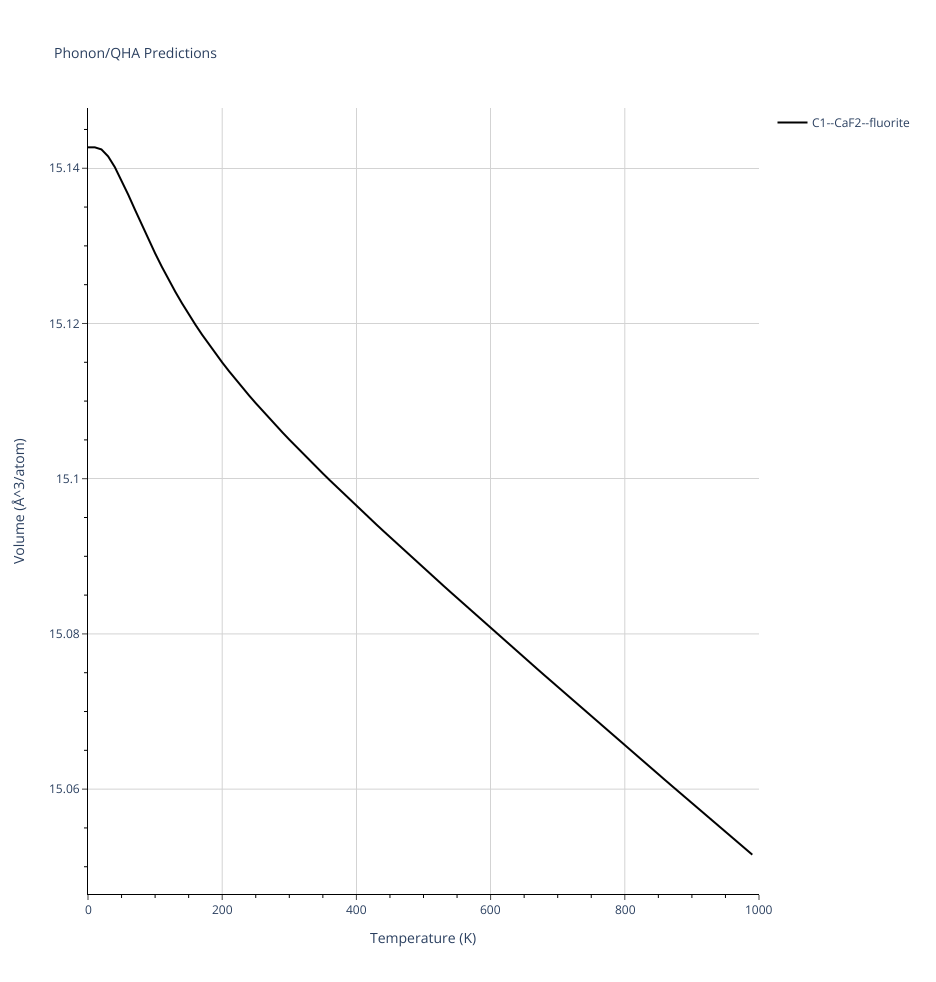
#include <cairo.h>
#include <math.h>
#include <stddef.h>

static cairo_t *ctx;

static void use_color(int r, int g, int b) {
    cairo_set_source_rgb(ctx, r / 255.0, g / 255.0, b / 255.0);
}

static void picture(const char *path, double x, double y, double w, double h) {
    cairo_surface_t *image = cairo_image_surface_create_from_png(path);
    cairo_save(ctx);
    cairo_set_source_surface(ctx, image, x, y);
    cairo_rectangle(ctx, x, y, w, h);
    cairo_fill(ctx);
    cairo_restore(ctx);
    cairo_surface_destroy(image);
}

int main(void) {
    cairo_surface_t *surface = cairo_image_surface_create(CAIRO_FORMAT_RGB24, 936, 982);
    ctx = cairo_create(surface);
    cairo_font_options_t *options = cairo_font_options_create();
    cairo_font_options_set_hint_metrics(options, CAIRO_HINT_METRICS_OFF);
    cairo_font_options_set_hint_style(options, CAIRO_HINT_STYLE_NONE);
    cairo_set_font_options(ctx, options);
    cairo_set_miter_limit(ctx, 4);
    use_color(255, 255, 255);
    cairo_paint(ctx);
    cairo_new_path(ctx);
    cairo_move_to(ctx, 777.5, 122.5);
    cairo_line_to(ctx, 807.5, 122.5);
    use_color(0, 0, 0);
    cairo_stroke(ctx);
    cairo_select_font_face(ctx, "Open Sans", CAIRO_FONT_SLANT_NORMAL, CAIRO_FONT_WEIGHT_NORMAL);
    cairo_set_font_size(ctx, 14);
    use_color(42, 63, 95);
    cairo_move_to(ctx, 54, 58);
    cairo_show_text(ctx, "Phonon/QHA Predictions");
    cairo_set_font_size(ctx, 12);
    cairo_move_to(ctx, 812, 127);
    cairo_show_text(ctx, "C1--CaF2--fluorite");
    cairo_set_font_size(ctx, 14);
    cairo_save(ctx);
    cairo_translate(ctx, 24, 564);
    cairo_rotate(ctx, -90 * M_PI / 180);
    cairo_move_to(ctx, 0, 0);
    cairo_show_text(ctx, "Volume (Å^3/atom)");
    cairo_restore(ctx);
    cairo_move_to(ctx, 370, 943);
    cairo_show_text(ctx, "Temperature (K)");
    picture("img1.png", 82, 108, 678, 792);
    cairo_set_font_size(ctx, 12);
    cairo_move_to(ctx, 49, 172);
    cairo_show_text(ctx, "15.14");
    cairo_move_to(ctx, 49, 328);
    cairo_show_text(ctx, "15.12");
    cairo_move_to(ctx, 56, 483);
    cairo_show_text(ctx, "15.1");
    cairo_move_to(ctx, 49, 638);
    cairo_show_text(ctx, "15.08");
    cairo_move_to(ctx, 49, 793);
    cairo_show_text(ctx, "15.06");
    cairo_move_to(ctx, 85, 914);
    cairo_show_text(ctx, "0");
    cairo_move_to(ctx, 212, 914);
    cairo_show_text(ctx, "200");
    cairo_move_to(ctx, 346, 914);
    cairo_show_text(ctx, "400");
    cairo_move_to(ctx, 480, 914);
    cairo_show_text(ctx, "600");
    cairo_move_to(ctx, 615, 914);
    cairo_show_text(ctx, "800");
    cairo_move_to(ctx, 745, 914);
    cairo_show_text(ctx, "1000");
    cairo_surface_write_to_png(surface, "result.png");
    cairo_font_options_destroy(options);
    cairo_destroy(ctx);
    cairo_surface_destroy(surface);
    return 0;
}
